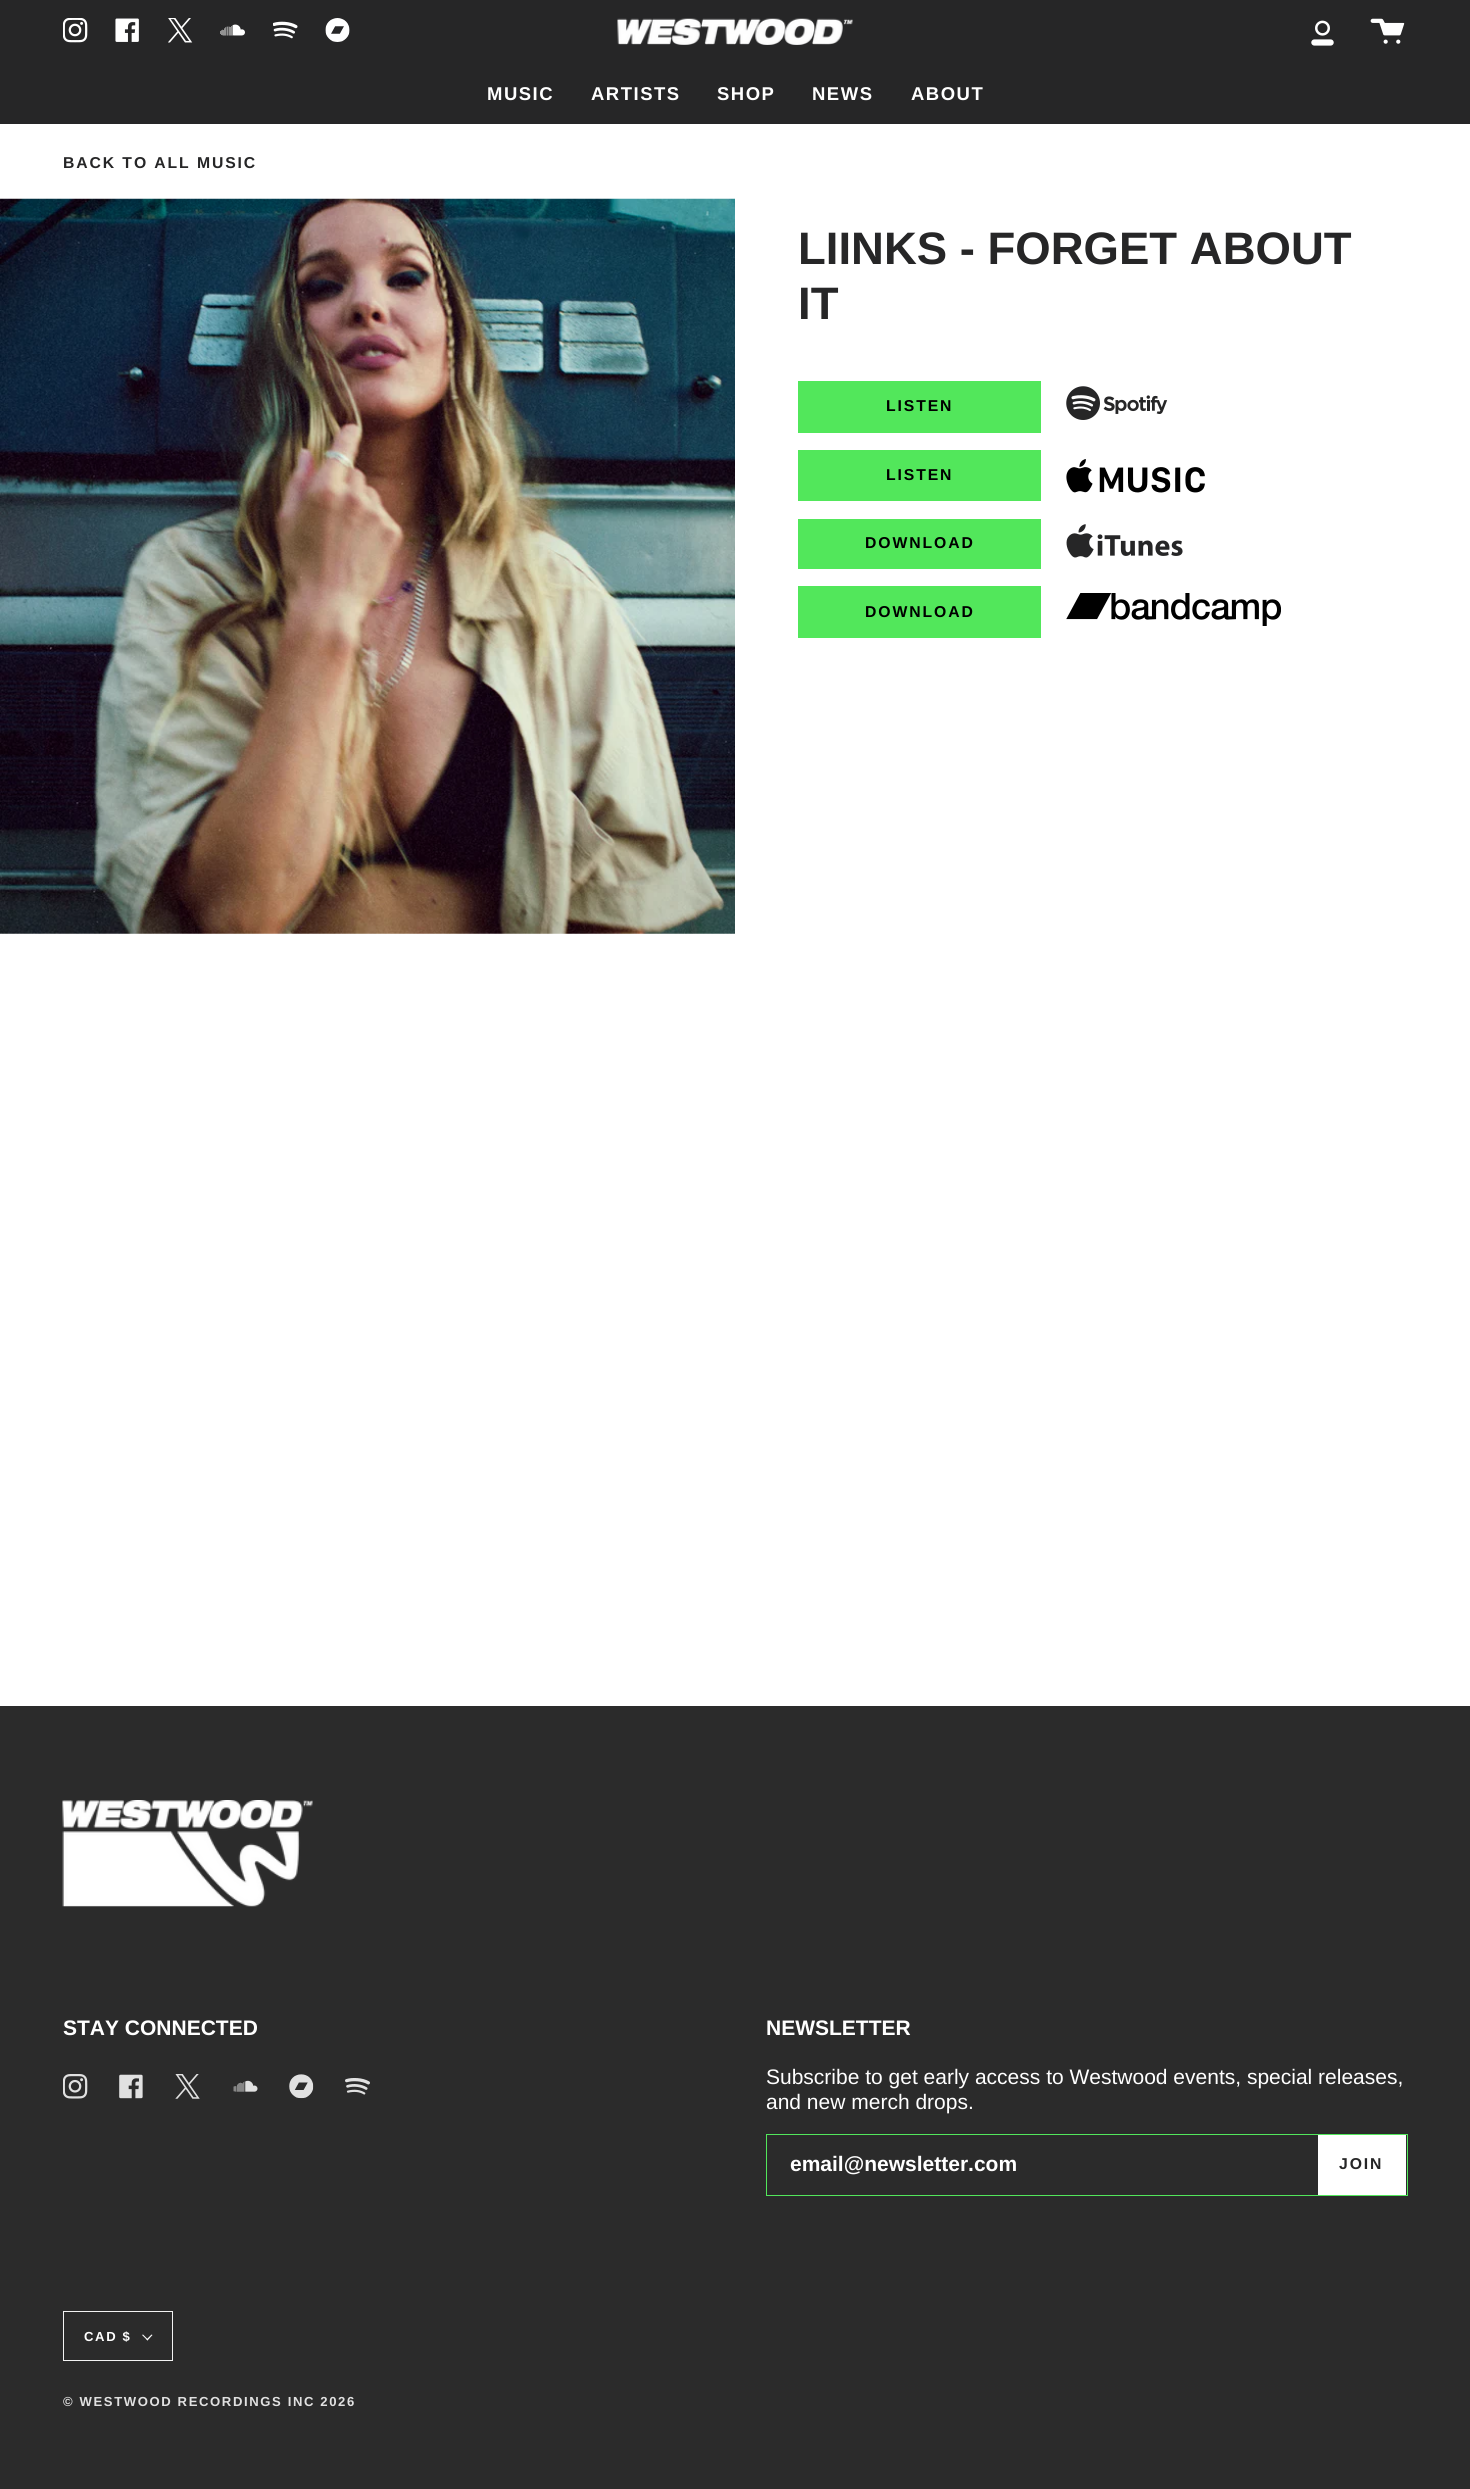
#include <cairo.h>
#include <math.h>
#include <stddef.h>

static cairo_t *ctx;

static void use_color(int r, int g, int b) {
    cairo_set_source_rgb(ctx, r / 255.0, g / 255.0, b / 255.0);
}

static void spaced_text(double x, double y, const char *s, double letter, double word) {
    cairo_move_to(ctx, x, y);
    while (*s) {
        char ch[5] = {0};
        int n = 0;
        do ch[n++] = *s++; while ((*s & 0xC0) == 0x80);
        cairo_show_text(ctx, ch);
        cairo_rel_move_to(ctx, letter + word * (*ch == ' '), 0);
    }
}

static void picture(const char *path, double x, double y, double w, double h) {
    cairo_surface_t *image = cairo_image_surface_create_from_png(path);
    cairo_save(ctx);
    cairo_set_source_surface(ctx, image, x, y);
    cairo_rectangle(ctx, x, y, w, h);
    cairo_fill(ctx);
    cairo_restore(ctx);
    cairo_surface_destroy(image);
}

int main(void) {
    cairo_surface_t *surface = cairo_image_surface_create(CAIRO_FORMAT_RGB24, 1470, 2489);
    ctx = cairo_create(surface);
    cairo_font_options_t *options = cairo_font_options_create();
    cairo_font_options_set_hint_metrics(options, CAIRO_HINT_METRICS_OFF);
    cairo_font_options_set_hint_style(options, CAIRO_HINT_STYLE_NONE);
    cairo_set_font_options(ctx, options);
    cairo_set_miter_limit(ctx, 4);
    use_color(255, 255, 255);
    cairo_paint(ctx);
    use_color(38, 38, 39);
    cairo_rectangle(ctx, 0, 123, 1470, 1);
    cairo_fill(ctx);
    cairo_rectangle(ctx, 0, 0, 1470, 123);
    cairo_fill(ctx);
    picture("img1.png", 63, 18, 25, 25);
    picture("img2.png", 115, 18, 24, 24);
    picture("img3.png", 168, 18, 25, 25);
    picture("img4.png", 220, 24, 25, 12);
    picture("img5.png", 273, 21, 25, 18);
    picture("img6.png", 325, 18, 25, 24);
    picture("img7.png", 617, 18, 236, 27);
    picture("img8.png", 1311, 20, 23, 26);
    picture("img9.png", 1370, 18, 35, 26);
    cairo_select_font_face(ctx, "Liberation Sans", CAIRO_FONT_SLANT_NORMAL, CAIRO_FONT_WEIGHT_BOLD);
    cairo_set_font_size(ctx, 18.5);
    use_color(255, 255, 255);
    spaced_text(487, 100, "MUSIC", 1.5, 0);
    spaced_text(591, 100, "ARTISTS", 1.5, 0);
    spaced_text(717, 100, "SHOP", 1.5, 0);
    spaced_text(812, 100, "NEWS", 1.5, 0);
    spaced_text(911, 100, "ABOUT", 1.5, 0);
    cairo_set_font_size(ctx, 15.75);
    use_color(38, 38, 39);
    spaced_text(63, 168, "BACK TO ALL MUSIC", 1.9, 0);
    picture("img10.png", 0, 198, 735, 736);
    cairo_set_font_size(ctx, 45.5);
    cairo_move_to(ctx, 798, 264);
    cairo_show_text(ctx, "LIINKS - FORGET ABOUT");
    cairo_move_to(ctx, 798, 319);
    cairo_show_text(ctx, "IT");
    use_color(82, 231, 91);
    cairo_rectangle(ctx, 798, 381, 243, 52);
    cairo_fill(ctx);
    cairo_set_font_size(ctx, 15.75);
    use_color(0, 0, 0);
    spaced_text(886, 411, "LISTEN", 1.9, 0);
    picture("img11.png", 1066, 386, 102, 34);
    use_color(82, 231, 91);
    cairo_rectangle(ctx, 798, 450, 243, 51);
    cairo_fill(ctx);
    use_color(0, 0, 0);
    spaced_text(886, 480, "LISTEN", 1.9, 0);
    picture("img12.png", 1066, 459, 139, 34);
    use_color(82, 231, 91);
    cairo_rectangle(ctx, 798, 519, 243, 50);
    cairo_fill(ctx);
    use_color(0, 0, 0);
    spaced_text(865, 548, "DOWNLOAD", 1.9, 0);
    picture("img13.png", 1066, 524, 117, 34);
    use_color(82, 231, 91);
    cairo_rectangle(ctx, 798, 586, 243, 52);
    cairo_fill(ctx);
    use_color(0, 0, 0);
    spaced_text(865, 617, "DOWNLOAD", 1.9, 0);
    picture("img14.png", 1066, 593, 215, 33);
    use_color(43, 43, 43);
    cairo_rectangle(ctx, 0, 1706, 1470, 783);
    cairo_fill(ctx);
    picture("img15.png", 62, 1800, 251, 107);
    cairo_set_font_size(ctx, 21);
    use_color(255, 255, 255);
    cairo_move_to(ctx, 63, 2035);
    cairo_show_text(ctx, "STAY CONNECTED");
    picture("img16.png", 63, 2074, 25, 25);
    picture("img17.png", 119, 2074, 24, 25);
    picture("img18.png", 175, 2074, 25, 25);
    picture("img19.png", 233, 2080, 25, 12);
    picture("img20.png", 289, 2074, 25, 25);
    picture("img21.png", 345, 2078, 25, 17);
    cairo_move_to(ctx, 766, 2035);
    cairo_show_text(ctx, "NEWSLETTER");
    cairo_select_font_face(ctx, "Liberation Sans", CAIRO_FONT_SLANT_NORMAL, CAIRO_FONT_WEIGHT_NORMAL);
    cairo_move_to(ctx, 766, 2084);
    cairo_show_text(ctx, "Subscribe to get early access to Westwood events, special releases,");
    cairo_move_to(ctx, 766, 2109);
    cairo_show_text(ctx, "and new merch drops.");
    cairo_rectangle(ctx, 766.5, 2134.5, 641, 61);
    use_color(82, 231, 91);
    cairo_set_line_width(ctx, 1);
    cairo_stroke(ctx);
    cairo_select_font_face(ctx, "Liberation Sans", CAIRO_FONT_SLANT_NORMAL, CAIRO_FONT_WEIGHT_BOLD);
    use_color(255, 255, 255);
    cairo_move_to(ctx, 790, 2171);
    cairo_show_text(ctx, "email@newsletter.com");
    cairo_rectangle(ctx, 1318, 2135, 88, 60);
    cairo_fill(ctx);
    cairo_set_font_size(ctx, 15.75);
    use_color(38, 38, 39);
    spaced_text(1339, 2169, "JOIN", 1.9, 0);
    cairo_rectangle(ctx, 63.5, 2311.5, 109, 49);
    use_color(243, 243, 243);
    cairo_stroke(ctx);
    cairo_set_font_size(ctx, 13.1);
    use_color(255, 255, 255);
    spaced_text(84, 2341, "CAD $", 1.6, 0);
    cairo_new_path(ctx);
    cairo_move_to(ctx, 146.5, 2339.5);
    cairo_line_to(ctx, 151.5, 2334.5);
    cairo_line_to(ctx, 152.5, 2335);
    cairo_line_to(ctx, 147.5, 2340.5);
    cairo_close_path(ctx);
    cairo_fill(ctx);
    cairo_new_path(ctx);
    cairo_move_to(ctx, 142, 2335);
    cairo_line_to(ctx, 143, 2334.5);
    cairo_line_to(ctx, 148, 2339.5);
    cairo_line_to(ctx, 147.5, 2340.5);
    cairo_close_path(ctx);
    cairo_fill(ctx);
    use_color(225, 225, 225);
    spaced_text(63, 2406, "© WESTWOOD RECORDINGS INC 2026", 1.6, 0);
    cairo_surface_write_to_png(surface, "result.png");
    cairo_font_options_destroy(options);
    cairo_destroy(ctx);
    cairo_surface_destroy(surface);
    return 0;
}
